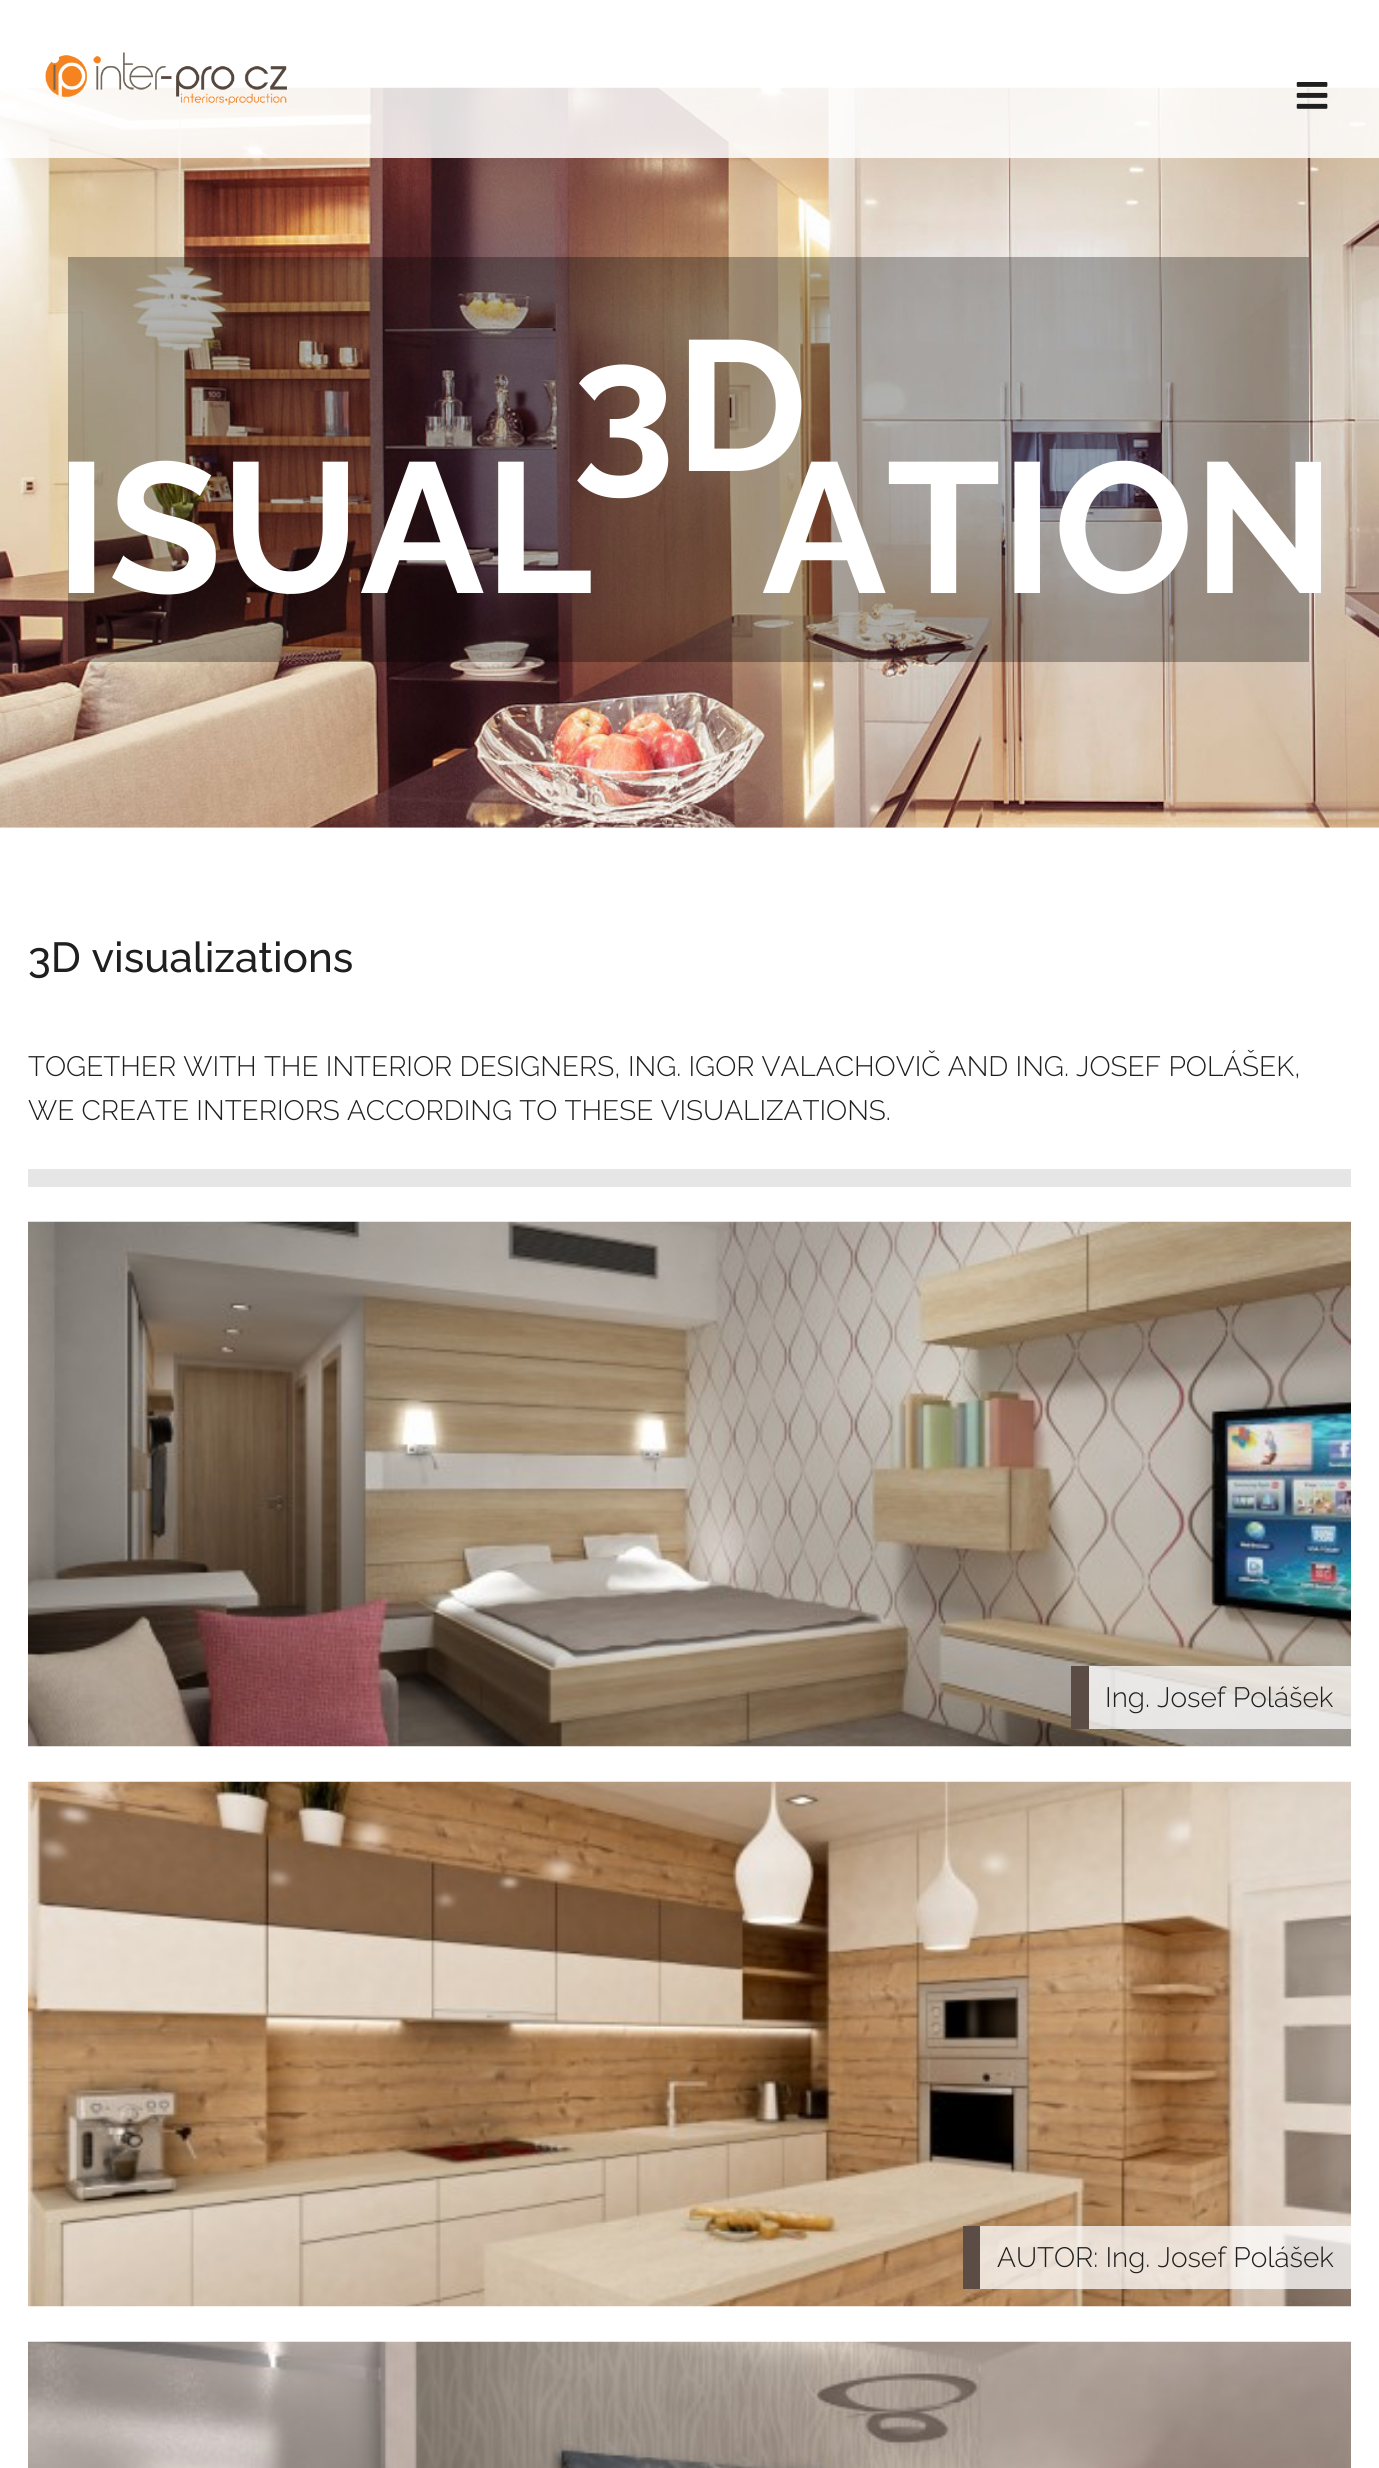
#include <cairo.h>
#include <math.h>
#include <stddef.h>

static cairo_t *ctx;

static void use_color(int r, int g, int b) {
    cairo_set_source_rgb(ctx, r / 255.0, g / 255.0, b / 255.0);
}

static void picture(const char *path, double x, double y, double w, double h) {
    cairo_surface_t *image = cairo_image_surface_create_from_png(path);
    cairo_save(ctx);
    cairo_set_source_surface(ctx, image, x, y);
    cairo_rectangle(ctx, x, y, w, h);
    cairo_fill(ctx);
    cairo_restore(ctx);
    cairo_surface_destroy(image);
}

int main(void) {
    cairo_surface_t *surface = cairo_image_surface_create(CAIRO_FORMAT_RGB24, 1379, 2468);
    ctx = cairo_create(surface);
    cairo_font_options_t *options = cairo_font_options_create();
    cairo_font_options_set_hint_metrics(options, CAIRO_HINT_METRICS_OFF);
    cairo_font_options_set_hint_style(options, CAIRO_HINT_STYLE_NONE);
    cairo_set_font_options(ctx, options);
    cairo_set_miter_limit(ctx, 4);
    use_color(255, 255, 255);
    cairo_paint(ctx);
    picture("img3.png", 0, 87, 1379, 741);
    cairo_set_source_rgba(ctx, 1, 1, 1, 0.85);
    cairo_rectangle(ctx, 0, 87, 1379, 71);
    cairo_fill(ctx);
    picture("img1.png", 45, 52, 242, 53);
    picture("img2.png", 1296, 82, 32, 27);
    cairo_set_source_rgba(ctx, 0, 0, 0, 0.3);
    cairo_rectangle(ctx, 68, 257, 1241, 405);
    cairo_fill(ctx);
    cairo_select_font_face(ctx, "Raleway", CAIRO_FONT_SLANT_NORMAL, CAIRO_FONT_WEIGHT_BOLD);
    cairo_set_font_size(ctx, 185);
    use_color(255, 255, 255);
    cairo_move_to(ctx, 572, 471);
    cairo_show_text(ctx, "3D");
    cairo_move_to(ctx, 55, 593);
    cairo_show_text(ctx, "ISUAL");
    cairo_move_to(ctx, 762, 593);
    cairo_show_text(ctx, "ATION");
    cairo_select_font_face(ctx, "Raleway Medium", CAIRO_FONT_SLANT_NORMAL, CAIRO_FONT_WEIGHT_NORMAL);
    cairo_set_font_size(ctx, 42);
    use_color(31, 31, 31);
    cairo_move_to(ctx, 28, 972);
    cairo_show_text(ctx, "3D visualizations");
    cairo_select_font_face(ctx, "Raleway Light", CAIRO_FONT_SLANT_NORMAL, CAIRO_FONT_WEIGHT_NORMAL);
    cairo_set_font_size(ctx, 28);
    cairo_move_to(ctx, 28, 1076);
    cairo_show_text(ctx, "TOGETHER WITH THE INTERIOR DESIGNERS, ING. IGOR VALACHOVIČ AND ING. JOSEF POLÁŠEK,");
    cairo_move_to(ctx, 28, 1120);
    cairo_show_text(ctx, "WE CREATE INTERIORS ACCORDING TO THESE VISUALIZATIONS.");
    use_color(230, 230, 230);
    cairo_rectangle(ctx, 28, 1169, 1323, 18);
    cairo_fill(ctx);
    picture("img4.png", 28, 1221, 1323, 526);
    cairo_set_source_rgba(ctx, 1, 1, 1, 0.75);
    cairo_rectangle(ctx, 1071, 1666, 280, 63);
    cairo_fill(ctx);
    cairo_set_source_rgba(ctx, 0.333, 0.275, 0.243, 0.95);
    cairo_rectangle(ctx, 1071, 1666, 18, 63);
    cairo_fill(ctx);
    use_color(31, 31, 31);
    cairo_move_to(ctx, 1105, 1707);
    cairo_show_text(ctx, "Ing. Josef Polášek");
    picture("img5.png", 28, 1781, 1323, 526);
    cairo_set_source_rgba(ctx, 1, 1, 1, 0.75);
    cairo_rectangle(ctx, 963, 2226, 388, 63);
    cairo_fill(ctx);
    cairo_set_source_rgba(ctx, 0.333, 0.275, 0.243, 0.95);
    cairo_rectangle(ctx, 963, 2226, 17, 63);
    cairo_fill(ctx);
    use_color(31, 31, 31);
    cairo_move_to(ctx, 997, 2267);
    cairo_show_text(ctx, "AUTOR: Ing. Josef Polášek");
    picture("img6.png", 28, 2341, 1323, 127);
    cairo_surface_write_to_png(surface, "result.png");
    cairo_font_options_destroy(options);
    cairo_destroy(ctx);
    cairo_surface_destroy(surface);
    return 0;
}
